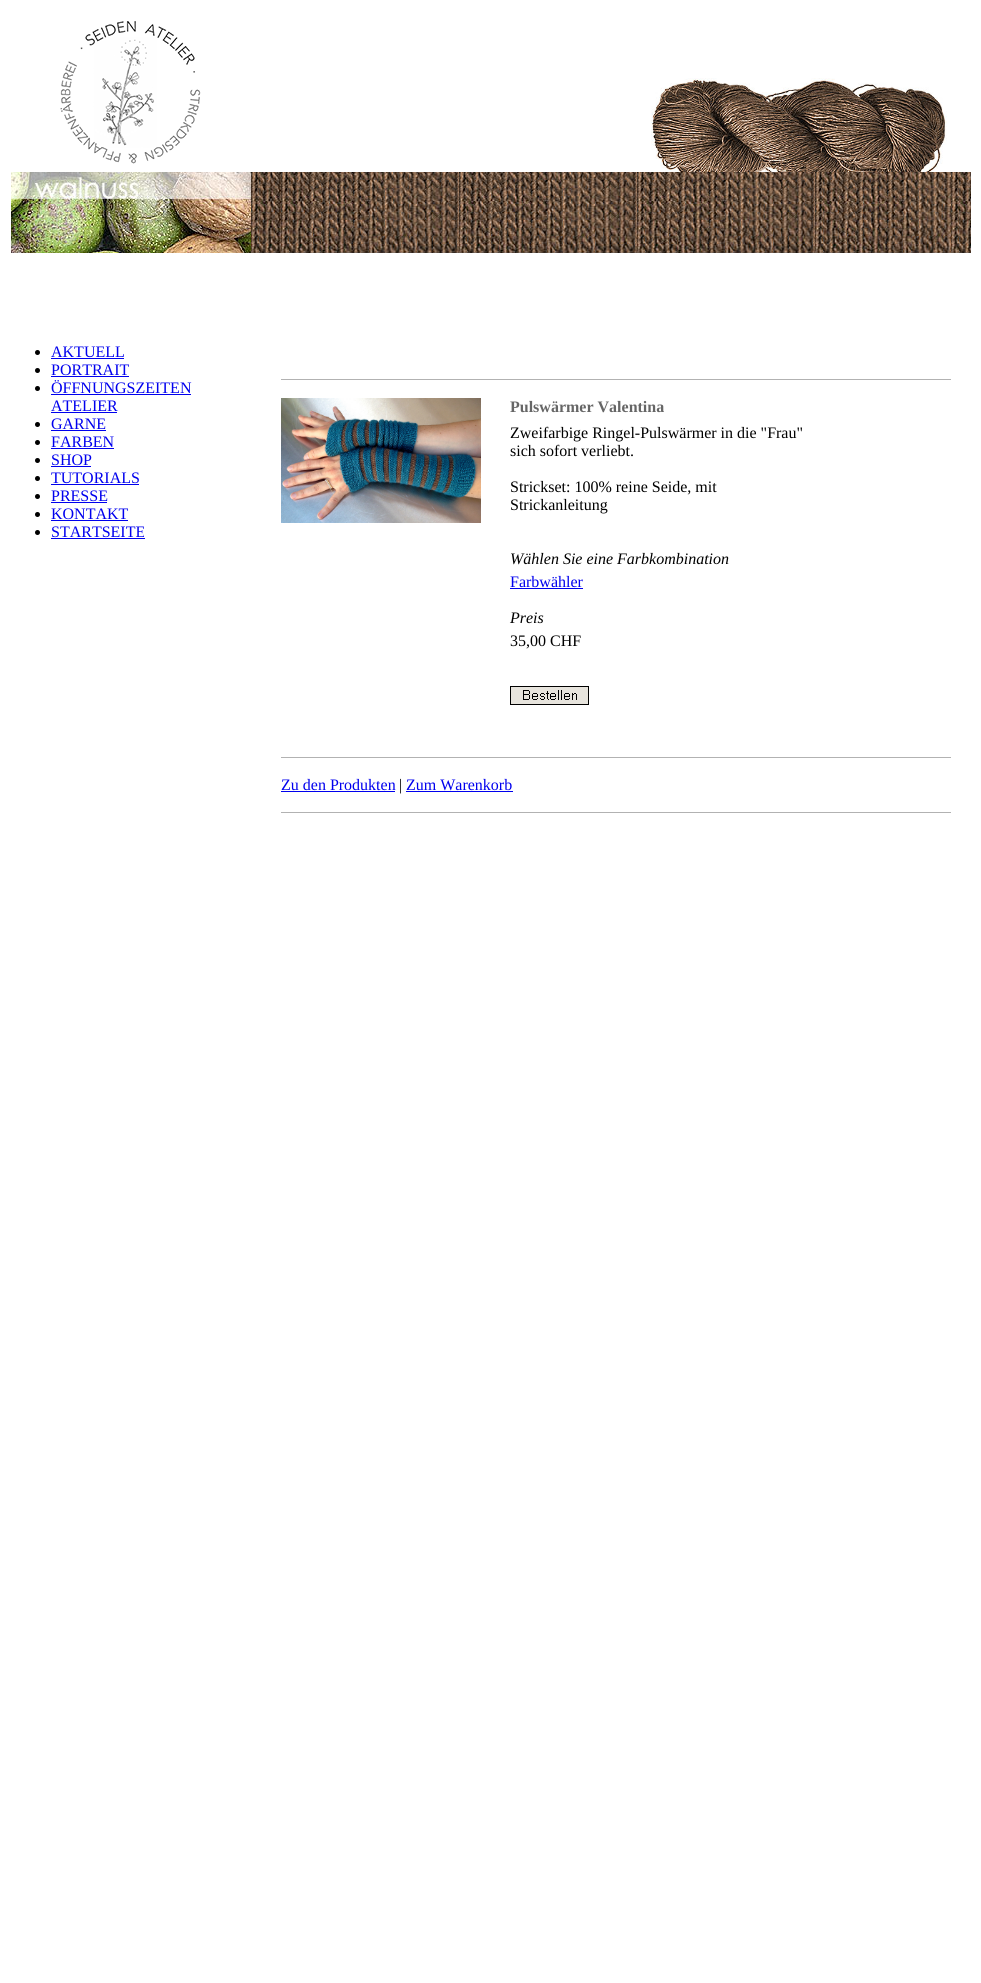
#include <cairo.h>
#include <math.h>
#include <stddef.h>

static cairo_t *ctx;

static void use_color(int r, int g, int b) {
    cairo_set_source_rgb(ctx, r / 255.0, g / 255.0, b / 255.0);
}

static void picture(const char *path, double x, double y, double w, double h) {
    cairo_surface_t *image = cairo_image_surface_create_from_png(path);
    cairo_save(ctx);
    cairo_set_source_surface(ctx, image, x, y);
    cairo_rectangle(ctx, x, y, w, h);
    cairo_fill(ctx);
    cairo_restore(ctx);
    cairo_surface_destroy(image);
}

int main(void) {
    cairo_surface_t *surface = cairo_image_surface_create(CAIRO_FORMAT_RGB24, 981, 1983);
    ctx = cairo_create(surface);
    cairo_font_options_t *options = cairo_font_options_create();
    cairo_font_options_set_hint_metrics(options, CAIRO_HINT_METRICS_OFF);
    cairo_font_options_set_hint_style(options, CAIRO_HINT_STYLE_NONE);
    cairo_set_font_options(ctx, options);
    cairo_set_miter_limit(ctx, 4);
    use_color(255, 255, 255);
    cairo_paint(ctx);
    picture("img1.png", 60, 21, 141, 143);
    picture("img2.png", 651, 78, 296, 94);
    picture("img3.png", 11, 172, 240, 81);
    picture("img4.png", 251, 172, 30, 81);
    picture("img5.png", 281, 172, 670, 81);
    picture("img6.png", 951, 172, 20, 81);
    use_color(0, 0, 0);
    cairo_arc(ctx, 37.5, 352.5, 2.5, 0, 2 * M_PI);
    cairo_fill(ctx);
    cairo_select_font_face(ctx, "Liberation Serif", CAIRO_FONT_SLANT_NORMAL, CAIRO_FONT_WEIGHT_NORMAL);
    cairo_set_font_size(ctx, 16);
    use_color(0, 0, 238);
    cairo_move_to(ctx, 51, 357);
    cairo_show_text(ctx, "AKTUELL");
    cairo_rectangle(ctx, 51, 358, 73, 1);
    cairo_fill(ctx);
    use_color(0, 0, 0);
    cairo_arc(ctx, 37.5, 370.5, 2.5, 0, 2 * M_PI);
    cairo_fill(ctx);
    use_color(0, 0, 238);
    cairo_move_to(ctx, 51, 375);
    cairo_show_text(ctx, "PORTRAIT");
    cairo_rectangle(ctx, 51, 376, 78, 1);
    cairo_fill(ctx);
    use_color(0, 0, 0);
    cairo_arc(ctx, 37.5, 388.5, 2.5, 0, 2 * M_PI);
    cairo_fill(ctx);
    use_color(0, 0, 238);
    cairo_move_to(ctx, 51, 393);
    cairo_show_text(ctx, "ÖFFNUNGSZEITEN");
    cairo_rectangle(ctx, 51, 394, 140, 1);
    cairo_fill(ctx);
    cairo_move_to(ctx, 51, 411);
    cairo_show_text(ctx, "ATELIER");
    cairo_rectangle(ctx, 51, 412, 66, 1);
    cairo_fill(ctx);
    use_color(0, 0, 0);
    cairo_arc(ctx, 37.5, 424.5, 2.5, 0, 2 * M_PI);
    cairo_fill(ctx);
    use_color(0, 0, 238);
    cairo_move_to(ctx, 51, 429);
    cairo_show_text(ctx, "GARNE");
    cairo_rectangle(ctx, 51, 430, 55, 1);
    cairo_fill(ctx);
    use_color(0, 0, 0);
    cairo_arc(ctx, 37.5, 442.5, 2.5, 0, 2 * M_PI);
    cairo_fill(ctx);
    use_color(0, 0, 238);
    cairo_move_to(ctx, 51, 447);
    cairo_show_text(ctx, "FARBEN");
    cairo_rectangle(ctx, 51, 448, 63, 1);
    cairo_fill(ctx);
    use_color(0, 0, 0);
    cairo_arc(ctx, 37.5, 460.5, 2.5, 0, 2 * M_PI);
    cairo_fill(ctx);
    use_color(0, 0, 238);
    cairo_move_to(ctx, 51, 465);
    cairo_show_text(ctx, "SHOP");
    cairo_rectangle(ctx, 51, 466, 40, 1);
    cairo_fill(ctx);
    use_color(0, 0, 0);
    cairo_arc(ctx, 37.5, 478.5, 2.5, 0, 2 * M_PI);
    cairo_fill(ctx);
    use_color(0, 0, 238);
    cairo_move_to(ctx, 51, 483);
    cairo_show_text(ctx, "TUTORIALS");
    cairo_rectangle(ctx, 51, 484, 88, 1);
    cairo_fill(ctx);
    use_color(0, 0, 0);
    cairo_arc(ctx, 37.5, 496.5, 2.5, 0, 2 * M_PI);
    cairo_fill(ctx);
    use_color(0, 0, 238);
    cairo_move_to(ctx, 51, 501);
    cairo_show_text(ctx, "PRESSE");
    cairo_rectangle(ctx, 51, 502, 56, 1);
    cairo_fill(ctx);
    use_color(0, 0, 0);
    cairo_arc(ctx, 37.5, 514.5, 2.5, 0, 2 * M_PI);
    cairo_fill(ctx);
    use_color(0, 0, 238);
    cairo_move_to(ctx, 51, 519);
    cairo_show_text(ctx, "KONTAKT");
    cairo_rectangle(ctx, 51, 520, 77, 1);
    cairo_fill(ctx);
    use_color(0, 0, 0);
    cairo_arc(ctx, 37.5, 532.5, 2.5, 0, 2 * M_PI);
    cairo_fill(ctx);
    use_color(0, 0, 238);
    cairo_move_to(ctx, 51, 537);
    cairo_show_text(ctx, "STARTSEITE");
    cairo_rectangle(ctx, 51, 538, 94, 1);
    cairo_fill(ctx);
    use_color(178, 178, 178);
    cairo_rectangle(ctx, 281, 379, 670, 1);
    cairo_fill(ctx);
    picture("img7.png", 281, 398, 200, 125);
    cairo_select_font_face(ctx, "Liberation Serif", CAIRO_FONT_SLANT_NORMAL, CAIRO_FONT_WEIGHT_BOLD);
    use_color(102, 102, 102);
    cairo_move_to(ctx, 510, 412);
    cairo_show_text(ctx, "Pulswärmer Valentina");
    cairo_select_font_face(ctx, "Liberation Serif", CAIRO_FONT_SLANT_NORMAL, CAIRO_FONT_WEIGHT_NORMAL);
    use_color(0, 0, 0);
    cairo_move_to(ctx, 510, 438);
    cairo_show_text(ctx, "Zweifarbige Ringel-Pulswärmer in die \"Frau\"");
    cairo_move_to(ctx, 510, 456);
    cairo_show_text(ctx, "sich sofort verliebt.");
    cairo_move_to(ctx, 510, 492);
    cairo_show_text(ctx, "Strickset: 100% reine Seide, mit");
    cairo_move_to(ctx, 510, 510);
    cairo_show_text(ctx, "Strickanleitung");
    cairo_select_font_face(ctx, "Liberation Serif", CAIRO_FONT_SLANT_ITALIC, CAIRO_FONT_WEIGHT_NORMAL);
    cairo_move_to(ctx, 510, 564);
    cairo_show_text(ctx, "Wählen Sie eine Farbkombination");
    cairo_select_font_face(ctx, "Liberation Serif", CAIRO_FONT_SLANT_NORMAL, CAIRO_FONT_WEIGHT_NORMAL);
    use_color(0, 0, 238);
    cairo_move_to(ctx, 510, 587);
    cairo_show_text(ctx, "Farbwähler");
    cairo_rectangle(ctx, 510, 588, 73, 1);
    cairo_fill(ctx);
    cairo_select_font_face(ctx, "Liberation Serif", CAIRO_FONT_SLANT_ITALIC, CAIRO_FONT_WEIGHT_NORMAL);
    use_color(0, 0, 0);
    cairo_move_to(ctx, 510, 623);
    cairo_show_text(ctx, "Preis");
    cairo_select_font_face(ctx, "Liberation Serif", CAIRO_FONT_SLANT_NORMAL, CAIRO_FONT_WEIGHT_NORMAL);
    cairo_move_to(ctx, 510, 646);
    cairo_show_text(ctx, "35,00 CHF");
    picture("img8.png", 510, 686, 79, 19);
    use_color(178, 178, 178);
    cairo_rectangle(ctx, 281, 757, 670, 1);
    cairo_fill(ctx);
    use_color(0, 0, 238);
    cairo_move_to(ctx, 281, 790);
    cairo_show_text(ctx, "Zu den Produkten");
    cairo_rectangle(ctx, 281, 791, 114, 1);
    cairo_fill(ctx);
    use_color(0, 0, 0);
    cairo_move_to(ctx, 399, 790);
    cairo_show_text(ctx, "|");
    use_color(0, 0, 238);
    cairo_move_to(ctx, 406, 790);
    cairo_show_text(ctx, "Zum Warenkorb");
    cairo_rectangle(ctx, 406, 791, 107, 1);
    cairo_fill(ctx);
    use_color(178, 178, 178);
    cairo_rectangle(ctx, 281, 812, 670, 1);
    cairo_fill(ctx);
    cairo_surface_write_to_png(surface, "result.png");
    cairo_font_options_destroy(options);
    cairo_destroy(ctx);
    cairo_surface_destroy(surface);
    return 0;
}
